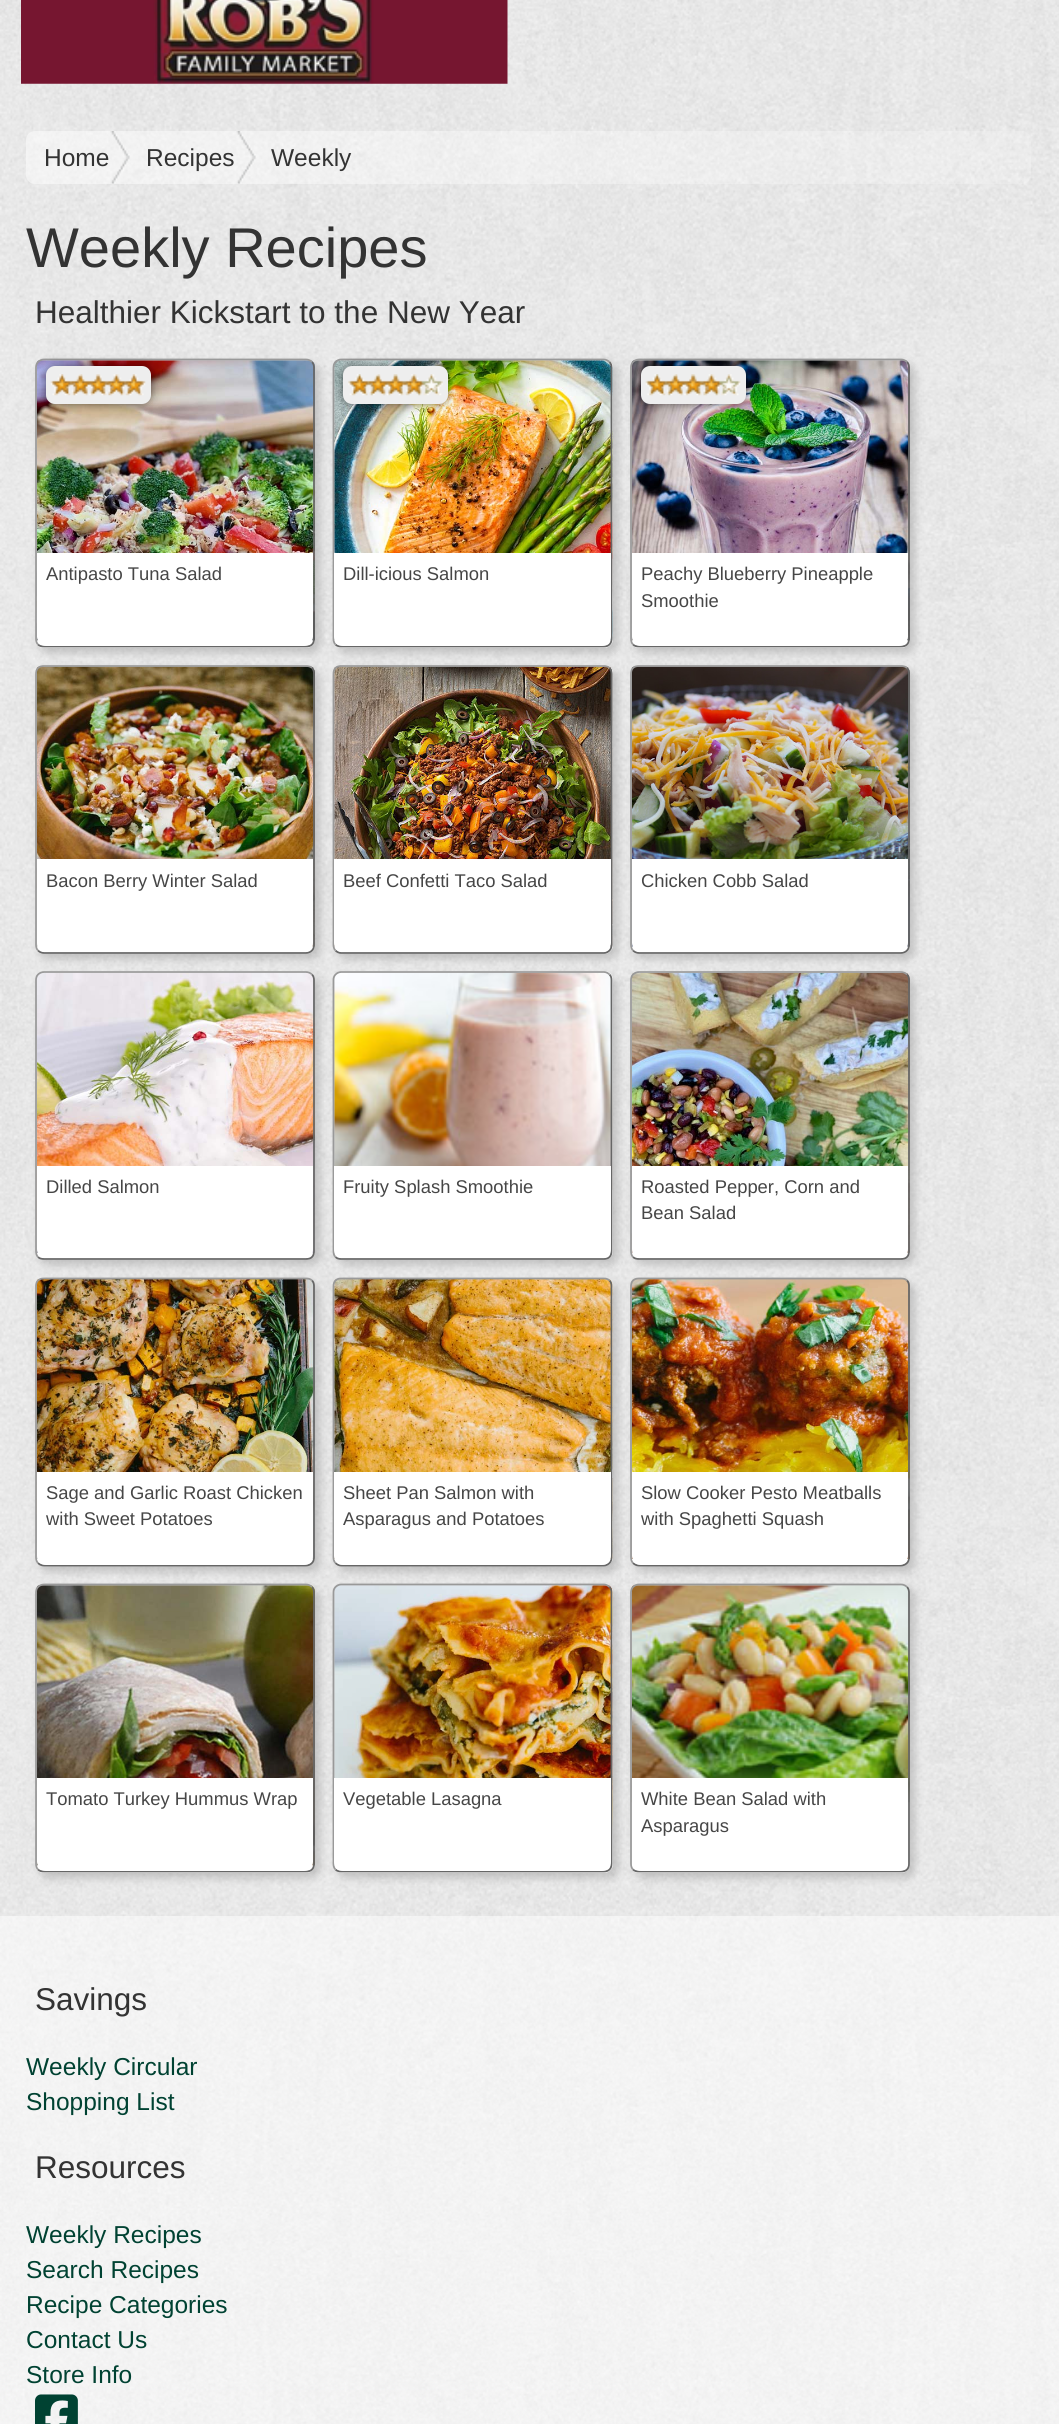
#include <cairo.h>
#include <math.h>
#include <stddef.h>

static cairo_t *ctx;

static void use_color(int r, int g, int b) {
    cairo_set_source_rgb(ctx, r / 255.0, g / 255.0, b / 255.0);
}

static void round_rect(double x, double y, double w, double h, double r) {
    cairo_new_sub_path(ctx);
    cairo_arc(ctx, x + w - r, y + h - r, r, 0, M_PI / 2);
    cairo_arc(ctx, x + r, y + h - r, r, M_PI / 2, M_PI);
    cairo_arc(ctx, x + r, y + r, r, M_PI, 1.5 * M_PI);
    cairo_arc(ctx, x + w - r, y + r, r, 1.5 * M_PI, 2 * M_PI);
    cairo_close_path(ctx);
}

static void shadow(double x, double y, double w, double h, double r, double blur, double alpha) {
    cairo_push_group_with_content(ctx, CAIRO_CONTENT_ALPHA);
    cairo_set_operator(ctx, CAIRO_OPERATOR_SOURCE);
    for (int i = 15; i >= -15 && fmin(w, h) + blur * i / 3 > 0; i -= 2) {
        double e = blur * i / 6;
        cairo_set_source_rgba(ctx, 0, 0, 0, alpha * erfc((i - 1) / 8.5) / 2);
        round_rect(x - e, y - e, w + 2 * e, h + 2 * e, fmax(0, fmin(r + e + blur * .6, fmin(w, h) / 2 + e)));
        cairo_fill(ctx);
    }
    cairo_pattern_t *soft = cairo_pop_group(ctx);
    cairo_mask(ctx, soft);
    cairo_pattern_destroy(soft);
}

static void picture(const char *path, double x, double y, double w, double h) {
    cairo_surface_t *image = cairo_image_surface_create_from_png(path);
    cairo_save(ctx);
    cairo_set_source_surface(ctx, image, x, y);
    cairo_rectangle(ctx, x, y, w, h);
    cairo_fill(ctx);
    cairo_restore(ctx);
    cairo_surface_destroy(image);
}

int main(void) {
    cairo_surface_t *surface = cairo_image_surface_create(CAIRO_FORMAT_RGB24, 1059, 2424);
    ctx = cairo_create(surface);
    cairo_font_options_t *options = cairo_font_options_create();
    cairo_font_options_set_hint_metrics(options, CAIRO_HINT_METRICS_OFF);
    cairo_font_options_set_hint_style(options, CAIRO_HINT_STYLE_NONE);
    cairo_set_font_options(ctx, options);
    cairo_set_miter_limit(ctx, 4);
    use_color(255, 255, 255);
    cairo_paint(ctx);
    picture("img1.png", 0, 0, 1059, 2424);
    picture("img2.png", 21, 0, 487, 84);
    picture("img3.png", 110, 131, 20, 53);
    cairo_select_font_face(ctx, "Liberation Sans", CAIRO_FONT_SLANT_NORMAL, CAIRO_FONT_WEIGHT_NORMAL);
    cairo_set_font_size(ctx, 24.5);
    use_color(51, 51, 51);
    cairo_move_to(ctx, 44, 166);
    cairo_show_text(ctx, "Home");
    picture("img4.png", 236, 131, 20, 53);
    cairo_move_to(ctx, 146, 166);
    cairo_show_text(ctx, "Recipes");
    cairo_move_to(ctx, 271, 166);
    cairo_show_text(ctx, "Weekly");
    cairo_set_font_size(ctx, 56);
    cairo_move_to(ctx, 26, 267);
    cairo_show_text(ctx, "Weekly Recipes");
    cairo_set_font_size(ctx, 31.5);
    cairo_move_to(ctx, 35, 323);
    cairo_show_text(ctx, "Healthier Kickstart to the New Year");
    use_color(153, 153, 153);
    shadow(40, 364, 280, 289, 9, 4.5, 0.5);
    use_color(255, 255, 255);
    round_rect(35, 359, 280, 289, 9);
    cairo_fill(ctx);
    picture("img5.png", 36, 360, 279, 281);
    cairo_new_path(ctx);
    cairo_move_to(ctx, 312, 362);
    cairo_curve_to(ctx, 313.5, 363.5, 314, 365.5, 314, 367.5);
    cairo_line_to(ctx, 314, 639);
    cairo_curve_to(ctx, 314, 641, 313.5, 643, 312, 644.5);
    cairo_curve_to(ctx, 310.5, 646, 308.5, 646.5, 306, 646.5);
    cairo_line_to(ctx, 44, 646.5);
    cairo_curve_to(ctx, 41.5, 646.5, 39.5, 646, 38, 644.5);
    use_color(102, 102, 102);
    cairo_set_line_width(ctx, 1.8);
    cairo_stroke(ctx);
    cairo_new_path(ctx);
    cairo_move_to(ctx, 38, 644.5);
    cairo_curve_to(ctx, 36.5, 643, 36, 641, 36, 639);
    cairo_line_to(ctx, 36, 367.5);
    cairo_curve_to(ctx, 36, 365.5, 36.5, 363.5, 38, 362);
    cairo_curve_to(ctx, 39.5, 360.5, 41.5, 359.5, 44, 359.5);
    cairo_line_to(ctx, 306, 359.5);
    cairo_curve_to(ctx, 308.5, 359.5, 310.5, 360.5, 312, 362);
    use_color(153, 153, 153);
    cairo_stroke(ctx);
    use_color(0, 0, 0);
    shadow(46, 366, 105, 38, 9, 4.5, 0.5);
    use_color(238, 238, 238);
    round_rect(46, 366, 105, 38, 9);
    cairo_fill(ctx);
    picture("img6.png", 50, 374, 96, 22);
    use_color(255, 255, 255);
    cairo_new_path(ctx);
    cairo_move_to(ctx, 37, 553);
    cairo_line_to(ctx, 313, 553);
    cairo_line_to(ctx, 313, 637);
    cairo_curve_to(ctx, 313, 642, 309, 646, 304, 646);
    cairo_line_to(ctx, 46, 646);
    cairo_curve_to(ctx, 41, 646, 37, 642, 37, 637);
    cairo_close_path(ctx);
    cairo_fill(ctx);
    cairo_set_font_size(ctx, 18.4);
    use_color(70, 70, 70);
    cairo_move_to(ctx, 46, 580);
    cairo_show_text(ctx, "Antipasto Tuna Salad");
    use_color(153, 153, 153);
    shadow(338, 364, 280, 289, 9, 4.5, 0.5);
    use_color(255, 255, 255);
    round_rect(333, 359, 280, 289, 9);
    cairo_fill(ctx);
    picture("img7.png", 334, 360, 279, 281);
    cairo_new_path(ctx);
    cairo_move_to(ctx, 609.5, 362);
    cairo_curve_to(ctx, 611, 363.5, 611.5, 365.5, 611.5, 367.5);
    cairo_line_to(ctx, 611.5, 639);
    cairo_curve_to(ctx, 611.5, 641, 611, 643, 609.5, 644.5);
    cairo_curve_to(ctx, 608, 646, 606, 646.5, 604, 646.5);
    cairo_line_to(ctx, 341, 646.5);
    cairo_curve_to(ctx, 339, 646.5, 337, 646, 335.5, 644.5);
    use_color(102, 102, 102);
    cairo_stroke(ctx);
    cairo_new_path(ctx);
    cairo_move_to(ctx, 335.5, 644.5);
    cairo_curve_to(ctx, 334, 643, 333.5, 641, 333.5, 639);
    cairo_line_to(ctx, 333.5, 367.5);
    cairo_curve_to(ctx, 333.5, 365.5, 334, 363.5, 335.5, 362);
    cairo_curve_to(ctx, 337, 360.5, 339, 359.5, 341, 359.5);
    cairo_line_to(ctx, 604, 359.5);
    cairo_curve_to(ctx, 606, 359.5, 608, 360.5, 609.5, 362);
    use_color(153, 153, 153);
    cairo_stroke(ctx);
    use_color(0, 0, 0);
    shadow(343, 366, 105, 38, 9, 4.5, 0.5);
    use_color(238, 238, 238);
    round_rect(343, 366, 105, 38, 9);
    cairo_fill(ctx);
    picture("img8.png", 348, 374, 95, 22);
    use_color(255, 255, 255);
    cairo_new_path(ctx);
    cairo_move_to(ctx, 334, 553);
    cairo_line_to(ctx, 611, 553);
    cairo_line_to(ctx, 611, 637);
    cairo_curve_to(ctx, 611, 642, 607, 646, 602, 646);
    cairo_line_to(ctx, 343, 646);
    cairo_curve_to(ctx, 338, 646, 334, 642, 334, 637);
    cairo_close_path(ctx);
    cairo_fill(ctx);
    use_color(70, 70, 70);
    cairo_move_to(ctx, 343, 580);
    cairo_show_text(ctx, "Dill-icious Salmon");
    use_color(153, 153, 153);
    shadow(635, 364, 280, 289, 9, 4.5, 0.5);
    use_color(255, 255, 255);
    round_rect(630, 359, 280, 289, 9);
    cairo_fill(ctx);
    picture("img9.png", 631, 360, 279, 281);
    cairo_new_path(ctx);
    cairo_move_to(ctx, 907, 362);
    cairo_curve_to(ctx, 908.5, 363.5, 909, 365.5, 909, 367.5);
    cairo_line_to(ctx, 909, 639);
    cairo_curve_to(ctx, 909, 641, 908.5, 643, 907, 644.5);
    cairo_curve_to(ctx, 905.5, 646, 903.5, 646.5, 901, 646.5);
    cairo_line_to(ctx, 639, 646.5);
    cairo_curve_to(ctx, 636.5, 646.5, 634.5, 646, 633, 644.5);
    use_color(102, 102, 102);
    cairo_stroke(ctx);
    cairo_new_path(ctx);
    cairo_move_to(ctx, 633, 644.5);
    cairo_curve_to(ctx, 631.5, 643, 631, 641, 631, 639);
    cairo_line_to(ctx, 631, 367.5);
    cairo_curve_to(ctx, 631, 365.5, 631.5, 363.5, 633, 362);
    cairo_curve_to(ctx, 634.5, 360.5, 636.5, 359.5, 639, 359.5);
    cairo_line_to(ctx, 901, 359.5);
    cairo_curve_to(ctx, 903.5, 359.5, 905.5, 360.5, 907, 362);
    use_color(153, 153, 153);
    cairo_stroke(ctx);
    use_color(0, 0, 0);
    shadow(641, 366, 105, 38, 9, 4.5, 0.5);
    use_color(238, 238, 238);
    round_rect(641, 366, 105, 38, 9);
    cairo_fill(ctx);
    picture("img10.png", 645, 374, 96, 22);
    use_color(255, 255, 255);
    cairo_new_path(ctx);
    cairo_move_to(ctx, 632, 553);
    cairo_line_to(ctx, 908, 553);
    cairo_line_to(ctx, 908, 637);
    cairo_curve_to(ctx, 908, 642, 904, 646, 899, 646);
    cairo_line_to(ctx, 641, 646);
    cairo_curve_to(ctx, 636, 646, 632, 642, 632, 637);
    cairo_close_path(ctx);
    cairo_fill(ctx);
    use_color(70, 70, 70);
    cairo_move_to(ctx, 641, 580);
    cairo_show_text(ctx, "Peachy Blueberry Pineapple");
    cairo_move_to(ctx, 641, 607);
    cairo_show_text(ctx, "Smoothie");
    use_color(153, 153, 153);
    shadow(40, 670, 280, 289, 9, 4.5, 0.5);
    use_color(255, 255, 255);
    round_rect(35, 665, 280, 289, 9);
    cairo_fill(ctx);
    picture("img11.png", 36, 666, 279, 281);
    cairo_new_path(ctx);
    cairo_move_to(ctx, 312, 668);
    cairo_curve_to(ctx, 313.5, 669.5, 314, 671.5, 314, 674);
    cairo_line_to(ctx, 314, 945);
    cairo_curve_to(ctx, 314, 947, 313.5, 949, 312, 950.5);
    cairo_curve_to(ctx, 310.5, 952, 308.5, 953, 306, 953);
    cairo_line_to(ctx, 44, 953);
    cairo_curve_to(ctx, 41.5, 953, 39.5, 952, 38, 950.5);
    use_color(102, 102, 102);
    cairo_stroke(ctx);
    cairo_new_path(ctx);
    cairo_move_to(ctx, 38, 950.5);
    cairo_curve_to(ctx, 36.5, 949, 36, 947, 36, 945);
    cairo_line_to(ctx, 36, 674);
    cairo_curve_to(ctx, 36, 671.5, 36.5, 669.5, 38, 668);
    cairo_curve_to(ctx, 39.5, 666.5, 41.5, 666, 44, 666);
    cairo_line_to(ctx, 306, 666);
    cairo_curve_to(ctx, 308.5, 666, 310.5, 666.5, 312, 668);
    use_color(153, 153, 153);
    cairo_stroke(ctx);
    use_color(255, 255, 255);
    cairo_new_path(ctx);
    cairo_move_to(ctx, 37, 859);
    cairo_line_to(ctx, 313, 859);
    cairo_line_to(ctx, 313, 943);
    cairo_curve_to(ctx, 313, 948, 309, 952, 304, 952);
    cairo_line_to(ctx, 46, 952);
    cairo_curve_to(ctx, 41, 952, 37, 948, 37, 943);
    cairo_close_path(ctx);
    cairo_fill(ctx);
    use_color(70, 70, 70);
    cairo_move_to(ctx, 46, 887);
    cairo_show_text(ctx, "Bacon Berry Winter Salad");
    use_color(153, 153, 153);
    shadow(338, 670, 280, 289, 9, 4.5, 0.5);
    use_color(255, 255, 255);
    round_rect(333, 665, 280, 289, 9);
    cairo_fill(ctx);
    picture("img12.png", 334, 666, 279, 281);
    cairo_new_path(ctx);
    cairo_move_to(ctx, 609.5, 668);
    cairo_curve_to(ctx, 611, 669.5, 611.5, 671.5, 611.5, 674);
    cairo_line_to(ctx, 611.5, 945);
    cairo_curve_to(ctx, 611.5, 947, 611, 949, 609.5, 950.5);
    cairo_curve_to(ctx, 608, 952, 606, 953, 604, 953);
    cairo_line_to(ctx, 341, 953);
    cairo_curve_to(ctx, 339, 953, 337, 952, 335.5, 950.5);
    use_color(102, 102, 102);
    cairo_stroke(ctx);
    cairo_new_path(ctx);
    cairo_move_to(ctx, 335.5, 950.5);
    cairo_curve_to(ctx, 334, 949, 333.5, 947, 333.5, 945);
    cairo_line_to(ctx, 333.5, 674);
    cairo_curve_to(ctx, 333.5, 671.5, 334, 669.5, 335.5, 668);
    cairo_curve_to(ctx, 337, 666.5, 339, 666, 341, 666);
    cairo_line_to(ctx, 604, 666);
    cairo_curve_to(ctx, 606, 666, 608, 666.5, 609.5, 668);
    use_color(153, 153, 153);
    cairo_stroke(ctx);
    use_color(255, 255, 255);
    cairo_new_path(ctx);
    cairo_move_to(ctx, 334, 859);
    cairo_line_to(ctx, 611, 859);
    cairo_line_to(ctx, 611, 943);
    cairo_curve_to(ctx, 611, 948, 607, 952, 602, 952);
    cairo_line_to(ctx, 343, 952);
    cairo_curve_to(ctx, 338, 952, 334, 948, 334, 943);
    cairo_close_path(ctx);
    cairo_fill(ctx);
    use_color(70, 70, 70);
    cairo_move_to(ctx, 343, 887);
    cairo_show_text(ctx, "Beef Confetti Taco Salad");
    use_color(153, 153, 153);
    shadow(635, 670, 280, 289, 9, 4.5, 0.5);
    use_color(255, 255, 255);
    round_rect(630, 665, 280, 289, 9);
    cairo_fill(ctx);
    picture("img13.png", 631, 666, 279, 281);
    cairo_new_path(ctx);
    cairo_move_to(ctx, 907, 668);
    cairo_curve_to(ctx, 908.5, 669.5, 909, 671.5, 909, 674);
    cairo_line_to(ctx, 909, 945);
    cairo_curve_to(ctx, 909, 947, 908.5, 949, 907, 950.5);
    cairo_curve_to(ctx, 905.5, 952, 903.5, 953, 901, 953);
    cairo_line_to(ctx, 639, 953);
    cairo_curve_to(ctx, 636.5, 953, 634.5, 952, 633, 950.5);
    use_color(102, 102, 102);
    cairo_stroke(ctx);
    cairo_new_path(ctx);
    cairo_move_to(ctx, 633, 950.5);
    cairo_curve_to(ctx, 631.5, 949, 631, 947, 631, 945);
    cairo_line_to(ctx, 631, 674);
    cairo_curve_to(ctx, 631, 671.5, 631.5, 669.5, 633, 668);
    cairo_curve_to(ctx, 634.5, 666.5, 636.5, 666, 639, 666);
    cairo_line_to(ctx, 901, 666);
    cairo_curve_to(ctx, 903.5, 666, 905.5, 666.5, 907, 668);
    use_color(153, 153, 153);
    cairo_stroke(ctx);
    use_color(255, 255, 255);
    cairo_new_path(ctx);
    cairo_move_to(ctx, 632, 859);
    cairo_line_to(ctx, 908, 859);
    cairo_line_to(ctx, 908, 943);
    cairo_curve_to(ctx, 908, 948, 904, 952, 899, 952);
    cairo_line_to(ctx, 641, 952);
    cairo_curve_to(ctx, 636, 952, 632, 948, 632, 943);
    cairo_close_path(ctx);
    cairo_fill(ctx);
    use_color(70, 70, 70);
    cairo_move_to(ctx, 641, 887);
    cairo_show_text(ctx, "Chicken Cobb Salad");
    use_color(153, 153, 153);
    shadow(40, 977, 280, 288, 9, 4.5, 0.5);
    use_color(255, 255, 255);
    round_rect(35, 971, 280, 289, 9);
    cairo_fill(ctx);
    picture("img14.png", 36, 972, 279, 281);
    cairo_new_path(ctx);
    cairo_move_to(ctx, 312, 974.5);
    cairo_curve_to(ctx, 313.5, 976, 314, 978, 314, 980);
    cairo_line_to(ctx, 314, 1251);
    cairo_curve_to(ctx, 314, 1253.5, 313.5, 1255.5, 312, 1257);
    cairo_curve_to(ctx, 310.5, 1258.5, 308.5, 1259, 306, 1259);
    cairo_line_to(ctx, 44, 1259);
    cairo_curve_to(ctx, 41.5, 1259, 39.5, 1258.5, 38, 1257);
    use_color(102, 102, 102);
    cairo_stroke(ctx);
    cairo_new_path(ctx);
    cairo_move_to(ctx, 38, 1257);
    cairo_curve_to(ctx, 36.5, 1255.5, 36, 1253.5, 36, 1251);
    cairo_line_to(ctx, 36, 980);
    cairo_curve_to(ctx, 36, 978, 36.5, 976, 38, 974.5);
    cairo_curve_to(ctx, 39.5, 973, 41.5, 972, 44, 972);
    cairo_line_to(ctx, 306, 972);
    cairo_curve_to(ctx, 308.5, 972, 310.5, 973, 312, 974.5);
    use_color(153, 153, 153);
    cairo_stroke(ctx);
    use_color(255, 255, 255);
    cairo_new_path(ctx);
    cairo_move_to(ctx, 37, 1166);
    cairo_line_to(ctx, 313, 1166);
    cairo_line_to(ctx, 313, 1249);
    cairo_curve_to(ctx, 313, 1254, 309, 1258, 304, 1258);
    cairo_line_to(ctx, 46, 1258);
    cairo_curve_to(ctx, 41, 1258, 37, 1254, 37, 1249);
    cairo_close_path(ctx);
    cairo_fill(ctx);
    use_color(70, 70, 70);
    cairo_move_to(ctx, 46, 1193);
    cairo_show_text(ctx, "Dilled Salmon");
    use_color(153, 153, 153);
    shadow(338, 977, 280, 288, 9, 4.5, 0.5);
    use_color(255, 255, 255);
    round_rect(333, 971, 280, 289, 9);
    cairo_fill(ctx);
    picture("img15.png", 334, 972, 279, 218);
    cairo_new_path(ctx);
    cairo_move_to(ctx, 609.5, 974.5);
    cairo_curve_to(ctx, 611, 976, 611.5, 978, 611.5, 980);
    cairo_line_to(ctx, 611.5, 1251);
    cairo_curve_to(ctx, 611.5, 1253.5, 611, 1255.5, 609.5, 1257);
    cairo_curve_to(ctx, 608, 1258.5, 606, 1259, 604, 1259);
    cairo_line_to(ctx, 341, 1259);
    cairo_curve_to(ctx, 339, 1259, 337, 1258.5, 335.5, 1257);
    use_color(102, 102, 102);
    cairo_stroke(ctx);
    cairo_new_path(ctx);
    cairo_move_to(ctx, 335.5, 1257);
    cairo_curve_to(ctx, 334, 1255.5, 333.5, 1253.5, 333.5, 1251);
    cairo_line_to(ctx, 333.5, 980);
    cairo_curve_to(ctx, 333.5, 978, 334, 976, 335.5, 974.5);
    cairo_curve_to(ctx, 337, 973, 339, 972, 341, 972);
    cairo_line_to(ctx, 604, 972);
    cairo_curve_to(ctx, 606, 972, 608, 973, 609.5, 974.5);
    use_color(153, 153, 153);
    cairo_stroke(ctx);
    use_color(255, 255, 255);
    cairo_new_path(ctx);
    cairo_move_to(ctx, 334, 1166);
    cairo_line_to(ctx, 611, 1166);
    cairo_line_to(ctx, 611, 1249);
    cairo_curve_to(ctx, 611, 1254, 607, 1258, 602, 1258);
    cairo_line_to(ctx, 343, 1258);
    cairo_curve_to(ctx, 338, 1258, 334, 1254, 334, 1249);
    cairo_close_path(ctx);
    cairo_fill(ctx);
    use_color(70, 70, 70);
    cairo_move_to(ctx, 343, 1193);
    cairo_show_text(ctx, "Fruity Splash Smoothie");
    use_color(153, 153, 153);
    shadow(635, 977, 280, 288, 9, 4.5, 0.5);
    use_color(255, 255, 255);
    round_rect(630, 971, 280, 289, 9);
    cairo_fill(ctx);
    picture("img16.png", 631, 972, 279, 281);
    cairo_new_path(ctx);
    cairo_move_to(ctx, 907, 974.5);
    cairo_curve_to(ctx, 908.5, 976, 909, 978, 909, 980);
    cairo_line_to(ctx, 909, 1251);
    cairo_curve_to(ctx, 909, 1253.5, 908.5, 1255.5, 907, 1257);
    cairo_curve_to(ctx, 905.5, 1258.5, 903.5, 1259, 901, 1259);
    cairo_line_to(ctx, 639, 1259);
    cairo_curve_to(ctx, 636.5, 1259, 634.5, 1258.5, 633, 1257);
    use_color(102, 102, 102);
    cairo_stroke(ctx);
    cairo_new_path(ctx);
    cairo_move_to(ctx, 633, 1257);
    cairo_curve_to(ctx, 631.5, 1255.5, 631, 1253.5, 631, 1251);
    cairo_line_to(ctx, 631, 980);
    cairo_curve_to(ctx, 631, 978, 631.5, 976, 633, 974.5);
    cairo_curve_to(ctx, 634.5, 973, 636.5, 972, 639, 972);
    cairo_line_to(ctx, 901, 972);
    cairo_curve_to(ctx, 903.5, 972, 905.5, 973, 907, 974.5);
    use_color(153, 153, 153);
    cairo_stroke(ctx);
    use_color(255, 255, 255);
    cairo_new_path(ctx);
    cairo_move_to(ctx, 632, 1166);
    cairo_line_to(ctx, 908, 1166);
    cairo_line_to(ctx, 908, 1249);
    cairo_curve_to(ctx, 908, 1254, 904, 1258, 899, 1258);
    cairo_line_to(ctx, 641, 1258);
    cairo_curve_to(ctx, 636, 1258, 632, 1254, 632, 1249);
    cairo_close_path(ctx);
    cairo_fill(ctx);
    use_color(70, 70, 70);
    cairo_move_to(ctx, 641, 1193);
    cairo_show_text(ctx, "Roasted Pepper, Corn and");
    cairo_move_to(ctx, 641, 1219);
    cairo_show_text(ctx, "Bean Salad");
    use_color(153, 153, 153);
    shadow(40, 1283, 280, 289, 9, 4.5, 0.5);
    use_color(255, 255, 255);
    round_rect(35, 1278, 280, 288, 9);
    cairo_fill(ctx);
    picture("img17.png", 36, 1279, 279, 280);
    cairo_new_path(ctx);
    cairo_move_to(ctx, 312, 1280.5);
    cairo_curve_to(ctx, 313.5, 1282, 314, 1284, 314, 1286);
    cairo_line_to(ctx, 314, 1557.5);
    cairo_curve_to(ctx, 314, 1559.5, 313.5, 1561.5, 312, 1563);
    cairo_curve_to(ctx, 310.5, 1564.5, 308.5, 1565.5, 306, 1565.5);
    cairo_line_to(ctx, 44, 1565.5);
    cairo_curve_to(ctx, 41.5, 1565.5, 39.5, 1564.5, 38, 1563);
    use_color(102, 102, 102);
    cairo_stroke(ctx);
    cairo_new_path(ctx);
    cairo_move_to(ctx, 38, 1563);
    cairo_curve_to(ctx, 36.5, 1561.5, 36, 1559.5, 36, 1557.5);
    cairo_line_to(ctx, 36, 1286);
    cairo_curve_to(ctx, 36, 1284, 36.5, 1282, 38, 1280.5);
    cairo_curve_to(ctx, 39.5, 1279, 41.5, 1278.5, 44, 1278.5);
    cairo_line_to(ctx, 306, 1278.5);
    cairo_curve_to(ctx, 308.5, 1278.5, 310.5, 1279, 312, 1280.5);
    use_color(153, 153, 153);
    cairo_stroke(ctx);
    use_color(255, 255, 255);
    cairo_new_path(ctx);
    cairo_move_to(ctx, 37, 1472);
    cairo_line_to(ctx, 313, 1472);
    cairo_line_to(ctx, 313, 1556);
    cairo_curve_to(ctx, 313, 1561, 309, 1565, 304, 1565);
    cairo_line_to(ctx, 46, 1565);
    cairo_curve_to(ctx, 41, 1565, 37, 1561, 37, 1556);
    cairo_close_path(ctx);
    cairo_fill(ctx);
    use_color(70, 70, 70);
    cairo_move_to(ctx, 46, 1499);
    cairo_show_text(ctx, "Sage and Garlic Roast Chicken");
    cairo_move_to(ctx, 46, 1525);
    cairo_show_text(ctx, "with Sweet Potatoes");
    use_color(153, 153, 153);
    shadow(338, 1283, 280, 289, 9, 4.5, 0.5);
    use_color(255, 255, 255);
    round_rect(333, 1278, 280, 288, 9);
    cairo_fill(ctx);
    picture("img18.png", 334, 1279, 279, 280);
    cairo_new_path(ctx);
    cairo_move_to(ctx, 609.5, 1280.5);
    cairo_curve_to(ctx, 611, 1282, 611.5, 1284, 611.5, 1286);
    cairo_line_to(ctx, 611.5, 1557.5);
    cairo_curve_to(ctx, 611.5, 1559.5, 611, 1561.5, 609.5, 1563);
    cairo_curve_to(ctx, 608, 1564.5, 606, 1565.5, 604, 1565.5);
    cairo_line_to(ctx, 341, 1565.5);
    cairo_curve_to(ctx, 339, 1565.5, 337, 1564.5, 335.5, 1563);
    use_color(102, 102, 102);
    cairo_stroke(ctx);
    cairo_new_path(ctx);
    cairo_move_to(ctx, 335.5, 1563);
    cairo_curve_to(ctx, 334, 1561.5, 333.5, 1559.5, 333.5, 1557.5);
    cairo_line_to(ctx, 333.5, 1286);
    cairo_curve_to(ctx, 333.5, 1284, 334, 1282, 335.5, 1280.5);
    cairo_curve_to(ctx, 337, 1279, 339, 1278.5, 341, 1278.5);
    cairo_line_to(ctx, 604, 1278.5);
    cairo_curve_to(ctx, 606, 1278.5, 608, 1279, 609.5, 1280.5);
    use_color(153, 153, 153);
    cairo_stroke(ctx);
    use_color(255, 255, 255);
    cairo_new_path(ctx);
    cairo_move_to(ctx, 334, 1472);
    cairo_line_to(ctx, 611, 1472);
    cairo_line_to(ctx, 611, 1556);
    cairo_curve_to(ctx, 611, 1561, 607, 1565, 602, 1565);
    cairo_line_to(ctx, 343, 1565);
    cairo_curve_to(ctx, 338, 1565, 334, 1561, 334, 1556);
    cairo_close_path(ctx);
    cairo_fill(ctx);
    use_color(70, 70, 70);
    cairo_move_to(ctx, 343, 1499);
    cairo_show_text(ctx, "Sheet Pan Salmon with");
    cairo_move_to(ctx, 343, 1525);
    cairo_show_text(ctx, "Asparagus and Potatoes");
    use_color(153, 153, 153);
    shadow(635, 1283, 280, 289, 9, 4.5, 0.5);
    use_color(255, 255, 255);
    round_rect(630, 1278, 280, 288, 9);
    cairo_fill(ctx);
    picture("img19.png", 631, 1279, 279, 280);
    cairo_new_path(ctx);
    cairo_move_to(ctx, 907, 1280.5);
    cairo_curve_to(ctx, 908.5, 1282, 909, 1284, 909, 1286);
    cairo_line_to(ctx, 909, 1557.5);
    cairo_curve_to(ctx, 909, 1559.5, 908.5, 1561.5, 907, 1563);
    cairo_curve_to(ctx, 905.5, 1564.5, 903.5, 1565.5, 901, 1565.5);
    cairo_line_to(ctx, 639, 1565.5);
    cairo_curve_to(ctx, 636.5, 1565.5, 634.5, 1564.5, 633, 1563);
    use_color(102, 102, 102);
    cairo_stroke(ctx);
    cairo_new_path(ctx);
    cairo_move_to(ctx, 633, 1563);
    cairo_curve_to(ctx, 631.5, 1561.5, 631, 1559.5, 631, 1557.5);
    cairo_line_to(ctx, 631, 1286);
    cairo_curve_to(ctx, 631, 1284, 631.5, 1282, 633, 1280.5);
    cairo_curve_to(ctx, 634.5, 1279, 636.5, 1278.5, 639, 1278.5);
    cairo_line_to(ctx, 901, 1278.5);
    cairo_curve_to(ctx, 903.5, 1278.5, 905.5, 1279, 907, 1280.5);
    use_color(153, 153, 153);
    cairo_stroke(ctx);
    use_color(255, 255, 255);
    cairo_new_path(ctx);
    cairo_move_to(ctx, 632, 1472);
    cairo_line_to(ctx, 908, 1472);
    cairo_line_to(ctx, 908, 1556);
    cairo_curve_to(ctx, 908, 1561, 904, 1565, 899, 1565);
    cairo_line_to(ctx, 641, 1565);
    cairo_curve_to(ctx, 636, 1565, 632, 1561, 632, 1556);
    cairo_close_path(ctx);
    cairo_fill(ctx);
    use_color(70, 70, 70);
    cairo_move_to(ctx, 641, 1499);
    cairo_show_text(ctx, "Slow Cooker Pesto Meatballs");
    cairo_move_to(ctx, 641, 1525);
    cairo_show_text(ctx, "with Spaghetti Squash");
    use_color(153, 153, 153);
    shadow(40, 1589, 280, 289, 9, 4.5, 0.5);
    use_color(255, 255, 255);
    round_rect(35, 1584, 280, 289, 9);
    cairo_fill(ctx);
    picture("img20.png", 36, 1585, 279, 281);
    cairo_new_path(ctx);
    cairo_move_to(ctx, 312, 1587);
    cairo_curve_to(ctx, 313.5, 1588.5, 314, 1590.5, 314, 1592.5);
    cairo_line_to(ctx, 314, 1864);
    cairo_curve_to(ctx, 314, 1866, 313.5, 1868, 312, 1869.5);
    cairo_curve_to(ctx, 310.5, 1871, 308.5, 1871.5, 306, 1871.5);
    cairo_line_to(ctx, 44, 1871.5);
    cairo_curve_to(ctx, 41.5, 1871.5, 39.5, 1871, 38, 1869.5);
    use_color(102, 102, 102);
    cairo_stroke(ctx);
    cairo_new_path(ctx);
    cairo_move_to(ctx, 38, 1869.5);
    cairo_curve_to(ctx, 36.5, 1868, 36, 1866, 36, 1864);
    cairo_line_to(ctx, 36, 1592.5);
    cairo_curve_to(ctx, 36, 1590.5, 36.5, 1588.5, 38, 1587);
    cairo_curve_to(ctx, 39.5, 1585.5, 41.5, 1584.5, 44, 1584.5);
    cairo_line_to(ctx, 306, 1584.5);
    cairo_curve_to(ctx, 308.5, 1584.5, 310.5, 1585.5, 312, 1587);
    use_color(153, 153, 153);
    cairo_stroke(ctx);
    use_color(255, 255, 255);
    cairo_new_path(ctx);
    cairo_move_to(ctx, 37, 1778);
    cairo_line_to(ctx, 313, 1778);
    cairo_line_to(ctx, 313, 1862);
    cairo_curve_to(ctx, 313, 1867, 309, 1871, 304, 1871);
    cairo_line_to(ctx, 46, 1871);
    cairo_curve_to(ctx, 41, 1871, 37, 1867, 37, 1862);
    cairo_close_path(ctx);
    cairo_fill(ctx);
    use_color(70, 70, 70);
    cairo_move_to(ctx, 46, 1805);
    cairo_show_text(ctx, "Tomato Turkey Hummus Wrap");
    use_color(153, 153, 153);
    shadow(338, 1589, 280, 289, 9, 4.5, 0.5);
    use_color(255, 255, 255);
    round_rect(333, 1584, 280, 289, 9);
    cairo_fill(ctx);
    picture("img21.png", 334, 1585, 279, 281);
    cairo_new_path(ctx);
    cairo_move_to(ctx, 609.5, 1587);
    cairo_curve_to(ctx, 611, 1588.5, 611.5, 1590.5, 611.5, 1592.5);
    cairo_line_to(ctx, 611.5, 1864);
    cairo_curve_to(ctx, 611.5, 1866, 611, 1868, 609.5, 1869.5);
    cairo_curve_to(ctx, 608, 1871, 606, 1871.5, 604, 1871.5);
    cairo_line_to(ctx, 341, 1871.5);
    cairo_curve_to(ctx, 339, 1871.5, 337, 1871, 335.5, 1869.5);
    use_color(102, 102, 102);
    cairo_stroke(ctx);
    cairo_new_path(ctx);
    cairo_move_to(ctx, 335.5, 1869.5);
    cairo_curve_to(ctx, 334, 1868, 333.5, 1866, 333.5, 1864);
    cairo_line_to(ctx, 333.5, 1592.5);
    cairo_curve_to(ctx, 333.5, 1590.5, 334, 1588.5, 335.5, 1587);
    cairo_curve_to(ctx, 337, 1585.5, 339, 1584.5, 341, 1584.5);
    cairo_line_to(ctx, 604, 1584.5);
    cairo_curve_to(ctx, 606, 1584.5, 608, 1585.5, 609.5, 1587);
    use_color(153, 153, 153);
    cairo_stroke(ctx);
    use_color(255, 255, 255);
    cairo_new_path(ctx);
    cairo_move_to(ctx, 334, 1778);
    cairo_line_to(ctx, 611, 1778);
    cairo_line_to(ctx, 611, 1862);
    cairo_curve_to(ctx, 611, 1867, 607, 1871, 602, 1871);
    cairo_line_to(ctx, 343, 1871);
    cairo_curve_to(ctx, 338, 1871, 334, 1867, 334, 1862);
    cairo_close_path(ctx);
    cairo_fill(ctx);
    use_color(70, 70, 70);
    cairo_move_to(ctx, 343, 1805);
    cairo_show_text(ctx, "Vegetable Lasagna");
    use_color(153, 153, 153);
    shadow(635, 1589, 280, 289, 9, 4.5, 0.5);
    use_color(255, 255, 255);
    round_rect(630, 1584, 280, 289, 9);
    cairo_fill(ctx);
    picture("img22.png", 631, 1585, 279, 218);
    cairo_new_path(ctx);
    cairo_move_to(ctx, 907, 1587);
    cairo_curve_to(ctx, 908.5, 1588.5, 909, 1590.5, 909, 1592.5);
    cairo_line_to(ctx, 909, 1864);
    cairo_curve_to(ctx, 909, 1866, 908.5, 1868, 907, 1869.5);
    cairo_curve_to(ctx, 905.5, 1871, 903.5, 1871.5, 901, 1871.5);
    cairo_line_to(ctx, 639, 1871.5);
    cairo_curve_to(ctx, 636.5, 1871.5, 634.5, 1871, 633, 1869.5);
    use_color(102, 102, 102);
    cairo_stroke(ctx);
    cairo_new_path(ctx);
    cairo_move_to(ctx, 633, 1869.5);
    cairo_curve_to(ctx, 631.5, 1868, 631, 1866, 631, 1864);
    cairo_line_to(ctx, 631, 1592.5);
    cairo_curve_to(ctx, 631, 1590.5, 631.5, 1588.5, 633, 1587);
    cairo_curve_to(ctx, 634.5, 1585.5, 636.5, 1584.5, 639, 1584.5);
    cairo_line_to(ctx, 901, 1584.5);
    cairo_curve_to(ctx, 903.5, 1584.5, 905.5, 1585.5, 907, 1587);
    use_color(153, 153, 153);
    cairo_stroke(ctx);
    use_color(255, 255, 255);
    cairo_new_path(ctx);
    cairo_move_to(ctx, 632, 1778);
    cairo_line_to(ctx, 908, 1778);
    cairo_line_to(ctx, 908, 1862);
    cairo_curve_to(ctx, 908, 1867, 904, 1871, 899, 1871);
    cairo_line_to(ctx, 641, 1871);
    cairo_curve_to(ctx, 636, 1871, 632, 1867, 632, 1862);
    cairo_close_path(ctx);
    cairo_fill(ctx);
    use_color(70, 70, 70);
    cairo_move_to(ctx, 641, 1805);
    cairo_show_text(ctx, "White Bean Salad with");
    cairo_move_to(ctx, 641, 1832);
    cairo_show_text(ctx, "Asparagus");
    cairo_set_source_rgba(ctx, 1, 1, 1, 0.5);
    cairo_rectangle(ctx, 0, 1916, 1059, 508);
    cairo_fill(ctx);
    cairo_set_font_size(ctx, 31.5);
    use_color(51, 51, 51);
    cairo_move_to(ctx, 35, 2010);
    cairo_show_text(ctx, "Savings");
    cairo_set_font_size(ctx, 24.5);
    use_color(0, 66, 50);
    cairo_move_to(ctx, 26, 2075);
    cairo_show_text(ctx, "Weekly Circular");
    cairo_move_to(ctx, 26, 2110);
    cairo_show_text(ctx, "Shopping List");
    cairo_set_font_size(ctx, 31.5);
    use_color(51, 51, 51);
    cairo_move_to(ctx, 35, 2178);
    cairo_show_text(ctx, "Resources");
    cairo_set_font_size(ctx, 24.5);
    use_color(0, 66, 50);
    cairo_move_to(ctx, 26, 2243);
    cairo_show_text(ctx, "Weekly Recipes");
    cairo_move_to(ctx, 26, 2278);
    cairo_show_text(ctx, "Search Recipes");
    cairo_move_to(ctx, 26, 2313);
    cairo_show_text(ctx, "Recipe Categories");
    cairo_move_to(ctx, 26, 2348);
    cairo_show_text(ctx, "Contact Us");
    cairo_move_to(ctx, 26, 2383);
    cairo_show_text(ctx, "Store Info");
    picture("img23.png", 35, 2394, 43, 30);
    cairo_surface_write_to_png(surface, "result.png");
    cairo_font_options_destroy(options);
    cairo_destroy(ctx);
    cairo_surface_destroy(surface);
    return 0;
}
